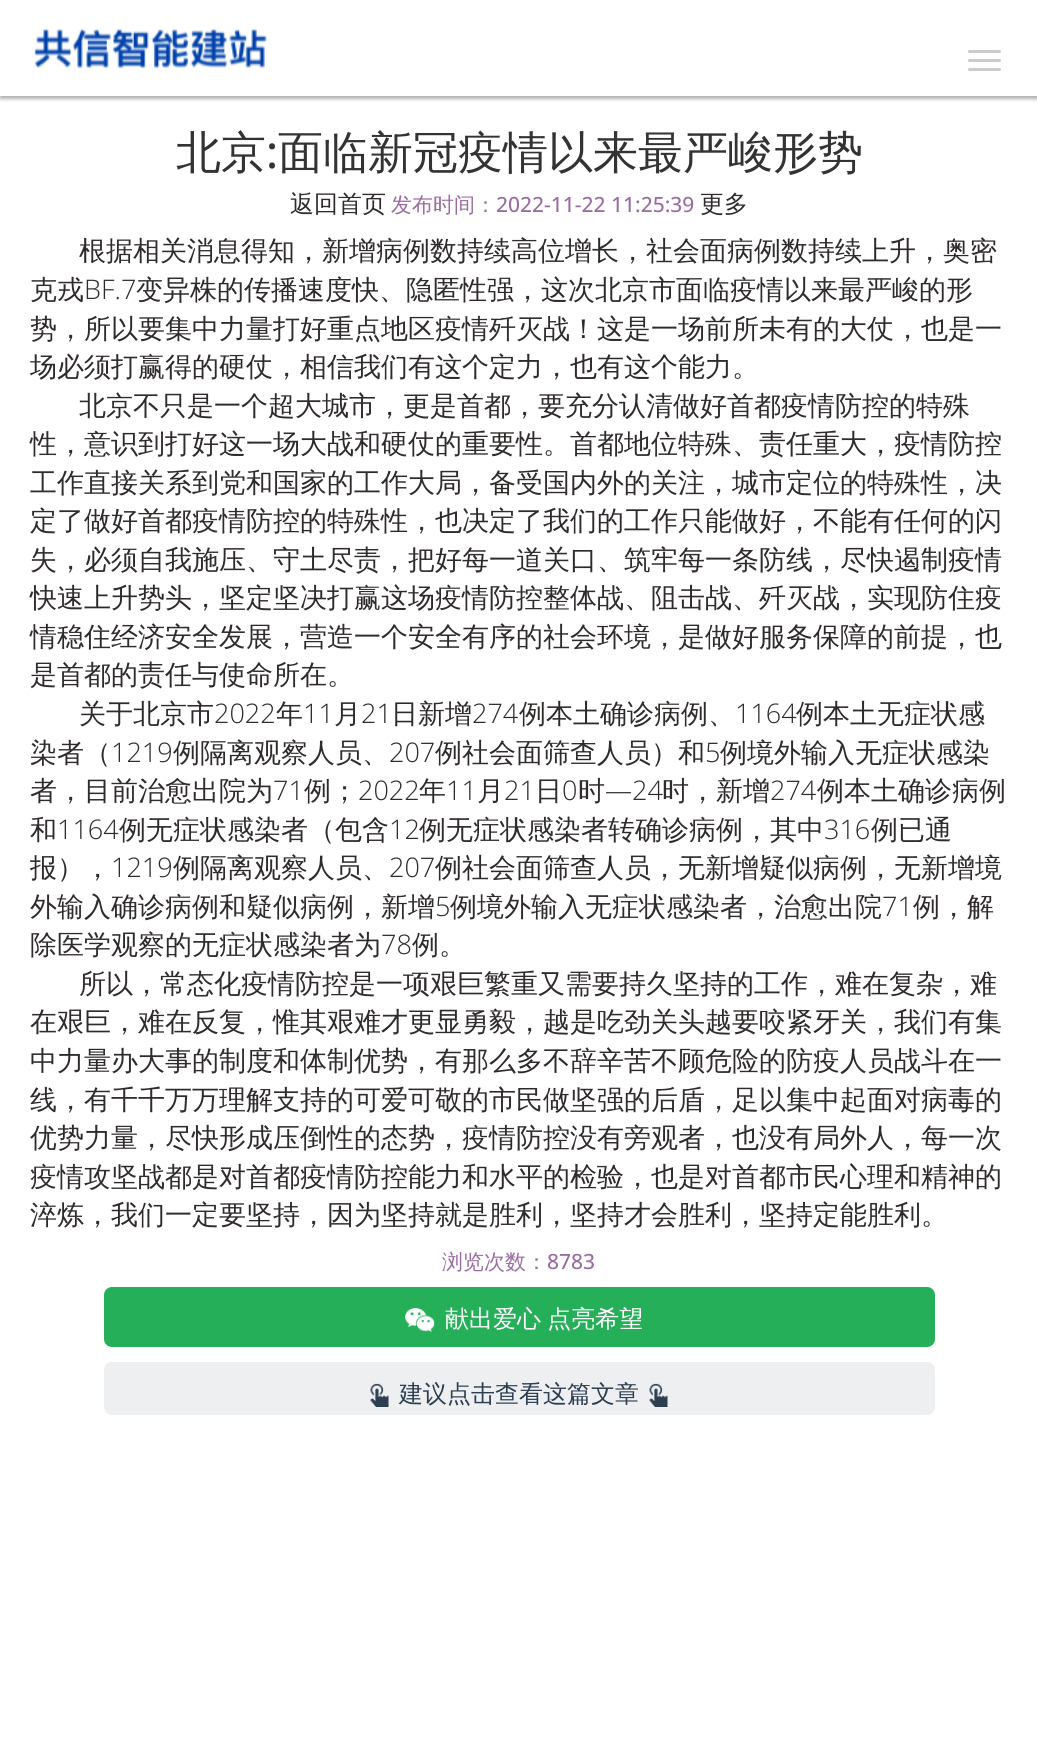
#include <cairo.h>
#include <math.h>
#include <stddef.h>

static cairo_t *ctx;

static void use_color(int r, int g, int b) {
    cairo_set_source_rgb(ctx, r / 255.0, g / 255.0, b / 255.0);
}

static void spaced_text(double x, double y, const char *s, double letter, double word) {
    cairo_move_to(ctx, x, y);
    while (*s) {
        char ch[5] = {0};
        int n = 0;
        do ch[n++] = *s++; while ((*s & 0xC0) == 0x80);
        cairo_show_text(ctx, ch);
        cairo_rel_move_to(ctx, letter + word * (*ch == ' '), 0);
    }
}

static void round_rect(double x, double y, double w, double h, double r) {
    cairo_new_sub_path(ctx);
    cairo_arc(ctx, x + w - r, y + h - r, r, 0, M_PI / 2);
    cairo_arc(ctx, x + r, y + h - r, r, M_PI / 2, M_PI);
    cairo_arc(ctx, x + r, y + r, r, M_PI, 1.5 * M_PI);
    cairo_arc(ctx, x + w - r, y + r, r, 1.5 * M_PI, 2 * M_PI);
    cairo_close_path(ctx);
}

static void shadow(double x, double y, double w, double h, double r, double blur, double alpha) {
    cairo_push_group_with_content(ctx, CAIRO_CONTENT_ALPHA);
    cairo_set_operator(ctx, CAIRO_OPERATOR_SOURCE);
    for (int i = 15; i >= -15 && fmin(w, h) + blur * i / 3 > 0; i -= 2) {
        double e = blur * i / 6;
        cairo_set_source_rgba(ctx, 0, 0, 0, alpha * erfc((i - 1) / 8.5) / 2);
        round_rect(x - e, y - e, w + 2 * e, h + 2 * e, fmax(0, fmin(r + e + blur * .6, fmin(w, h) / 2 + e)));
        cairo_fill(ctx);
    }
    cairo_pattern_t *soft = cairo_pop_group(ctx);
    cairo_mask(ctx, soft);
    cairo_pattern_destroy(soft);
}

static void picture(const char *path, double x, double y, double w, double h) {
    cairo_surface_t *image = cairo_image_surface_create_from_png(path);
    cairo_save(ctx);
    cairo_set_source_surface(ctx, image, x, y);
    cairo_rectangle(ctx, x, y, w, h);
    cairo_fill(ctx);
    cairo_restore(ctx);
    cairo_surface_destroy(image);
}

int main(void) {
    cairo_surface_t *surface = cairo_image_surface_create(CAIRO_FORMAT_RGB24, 1037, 1747);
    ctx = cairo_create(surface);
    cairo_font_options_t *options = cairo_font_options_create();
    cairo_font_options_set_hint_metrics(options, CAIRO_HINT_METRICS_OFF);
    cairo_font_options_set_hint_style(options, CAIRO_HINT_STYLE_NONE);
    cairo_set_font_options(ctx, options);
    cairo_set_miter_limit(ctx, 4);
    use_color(255, 255, 255);
    cairo_paint(ctx);
    cairo_save(ctx);
    cairo_rectangle(ctx, 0, 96, 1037, 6);
    cairo_clip(ctx);
    use_color(0, 0, 0);
    shadow(0, 3, 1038, 96, 0, 2, 0.32);
    cairo_restore(ctx);
    picture("img1.png", 34, 28, 233, 41);
    use_color(204, 204, 204);
    round_rect(968, 50, 33, 3, 1.5);
    cairo_fill(ctx);
    round_rect(968, 59, 33, 3, 1.5);
    cairo_fill(ctx);
    round_rect(968, 68, 33, 3, 1.5);
    cairo_fill(ctx);
    cairo_select_font_face(ctx, "WenQuanYi Zen Hei Medium", CAIRO_FONT_SLANT_NORMAL, CAIRO_FONT_WEIGHT_NORMAL);
    cairo_set_font_size(ctx, 45);
    use_color(51, 51, 51);
    cairo_move_to(ctx, 176, 168);
    cairo_show_text(ctx, "北京");
    cairo_select_font_face(ctx, "Open Sans Medium", CAIRO_FONT_SLANT_NORMAL, CAIRO_FONT_WEIGHT_NORMAL);
    cairo_move_to(ctx, 266, 168);
    cairo_show_text(ctx, ":");
    cairo_select_font_face(ctx, "WenQuanYi Zen Hei Medium", CAIRO_FONT_SLANT_NORMAL, CAIRO_FONT_WEIGHT_NORMAL);
    cairo_move_to(ctx, 278, 168);
    cairo_show_text(ctx, "面临新冠疫情以来最严峻形势");
    cairo_set_font_size(ctx, 24);
    use_color(47, 43, 43);
    cairo_move_to(ctx, 290, 212);
    cairo_show_text(ctx, "返回首页");
    cairo_set_font_size(ctx, 21);
    use_color(155, 107, 162);
    cairo_move_to(ctx, 391, 212);
    cairo_show_text(ctx, "发布时间：");
    cairo_select_font_face(ctx, "Open Sans Medium", CAIRO_FONT_SLANT_NORMAL, CAIRO_FONT_WEIGHT_NORMAL);
    cairo_move_to(ctx, 496, 212);
    cairo_show_text(ctx, "2022-11-22 11:25:39");
    cairo_select_font_face(ctx, "WenQuanYi Zen Hei Medium", CAIRO_FONT_SLANT_NORMAL, CAIRO_FONT_WEIGHT_NORMAL);
    cairo_set_font_size(ctx, 24);
    use_color(47, 43, 43);
    cairo_move_to(ctx, 700, 212);
    cairo_show_text(ctx, "更多");
    cairo_set_font_size(ctx, 27);
    cairo_move_to(ctx, 79, 260);
    cairo_show_text(ctx, "根据相关消息得知，新增病例数持续高位增长，社会面病例数持续上升，奥密");
    cairo_move_to(ctx, 30, 299);
    cairo_show_text(ctx, "克戎");
    cairo_select_font_face(ctx, "Open Sans Light", CAIRO_FONT_SLANT_NORMAL, CAIRO_FONT_WEIGHT_NORMAL);
    cairo_move_to(ctx, 84, 299);
    cairo_show_text(ctx, "BF.7");
    cairo_select_font_face(ctx, "WenQuanYi Zen Hei Medium", CAIRO_FONT_SLANT_NORMAL, CAIRO_FONT_WEIGHT_NORMAL);
    cairo_move_to(ctx, 136, 299);
    cairo_show_text(ctx, "变异株的传播速度快、隐匿性强，这次北京市面临疫情以来最严峻的形");
    cairo_move_to(ctx, 30, 338);
    cairo_show_text(ctx, "势，所以要集中力量打好重点地区疫情歼灭战！这是一场前所未有的大仗，也是一");
    cairo_move_to(ctx, 30, 376);
    cairo_show_text(ctx, "场必须打赢得的硬仗，相信我们有这个定力，也有这个能力。");
    cairo_move_to(ctx, 79, 415);
    cairo_show_text(ctx, "北京不只是一个超大城市，更是首都，要充分认清做好首都疫情防控的特殊");
    cairo_move_to(ctx, 30, 453);
    cairo_show_text(ctx, "性，意识到打好这一场大战和硬仗的重要性。首都地位特殊、责任重大，疫情防控");
    cairo_move_to(ctx, 30, 492);
    cairo_show_text(ctx, "工作直接关系到党和国家的工作大局，备受国内外的关注，城市定位的特殊性，决");
    cairo_move_to(ctx, 30, 530);
    cairo_show_text(ctx, "定了做好首都疫情防控的特殊性，也决定了我们的工作只能做好，不能有任何的闪");
    cairo_move_to(ctx, 30, 569);
    cairo_show_text(ctx, "失，必须自我施压、守土尽责，把好每一道关口、筑牢每一条防线，尽快遏制疫情");
    cairo_move_to(ctx, 30, 607);
    cairo_show_text(ctx, "快速上升势头，坚定坚决打赢这场疫情防控整体战、阻击战、歼灭战，实现防住疫");
    cairo_move_to(ctx, 30, 646);
    cairo_show_text(ctx, "情稳住经济安全发展，营造一个安全有序的社会环境，是做好服务保障的前提，也");
    cairo_move_to(ctx, 30, 684);
    cairo_show_text(ctx, "是首都的责任与使命所在。");
    cairo_move_to(ctx, 79, 723);
    cairo_show_text(ctx, "关于北京市");
    cairo_select_font_face(ctx, "Open Sans Light", CAIRO_FONT_SLANT_NORMAL, CAIRO_FONT_WEIGHT_NORMAL);
    cairo_move_to(ctx, 214, 723);
    cairo_show_text(ctx, "2022");
    cairo_select_font_face(ctx, "WenQuanYi Zen Hei Medium", CAIRO_FONT_SLANT_NORMAL, CAIRO_FONT_WEIGHT_NORMAL);
    cairo_move_to(ctx, 276, 723);
    cairo_show_text(ctx, "年");
    cairo_select_font_face(ctx, "Open Sans Light", CAIRO_FONT_SLANT_NORMAL, CAIRO_FONT_WEIGHT_NORMAL);
    cairo_move_to(ctx, 303, 723);
    cairo_show_text(ctx, "11");
    cairo_select_font_face(ctx, "WenQuanYi Zen Hei Medium", CAIRO_FONT_SLANT_NORMAL, CAIRO_FONT_WEIGHT_NORMAL);
    cairo_move_to(ctx, 334, 723);
    cairo_show_text(ctx, "月");
    cairo_select_font_face(ctx, "Open Sans Light", CAIRO_FONT_SLANT_NORMAL, CAIRO_FONT_WEIGHT_NORMAL);
    cairo_move_to(ctx, 361, 723);
    cairo_show_text(ctx, "21");
    cairo_select_font_face(ctx, "WenQuanYi Zen Hei Medium", CAIRO_FONT_SLANT_NORMAL, CAIRO_FONT_WEIGHT_NORMAL);
    cairo_move_to(ctx, 391, 723);
    cairo_show_text(ctx, "日新增");
    cairo_select_font_face(ctx, "Open Sans Light", CAIRO_FONT_SLANT_NORMAL, CAIRO_FONT_WEIGHT_NORMAL);
    cairo_move_to(ctx, 472, 723);
    cairo_show_text(ctx, "274");
    cairo_select_font_face(ctx, "WenQuanYi Zen Hei Medium", CAIRO_FONT_SLANT_NORMAL, CAIRO_FONT_WEIGHT_NORMAL);
    cairo_move_to(ctx, 519, 723);
    cairo_show_text(ctx, "例本土确诊病例、");
    cairo_select_font_face(ctx, "Open Sans Light", CAIRO_FONT_SLANT_NORMAL, CAIRO_FONT_WEIGHT_NORMAL);
    cairo_move_to(ctx, 735, 723);
    cairo_show_text(ctx, "1164");
    cairo_select_font_face(ctx, "WenQuanYi Zen Hei Medium", CAIRO_FONT_SLANT_NORMAL, CAIRO_FONT_WEIGHT_NORMAL);
    cairo_move_to(ctx, 796, 723);
    cairo_show_text(ctx, "例本土无症状感");
    cairo_move_to(ctx, 30, 762);
    cairo_show_text(ctx, "染者（");
    cairo_select_font_face(ctx, "Open Sans Light", CAIRO_FONT_SLANT_NORMAL, CAIRO_FONT_WEIGHT_NORMAL);
    cairo_move_to(ctx, 111, 762);
    cairo_show_text(ctx, "1219");
    cairo_select_font_face(ctx, "WenQuanYi Zen Hei Medium", CAIRO_FONT_SLANT_NORMAL, CAIRO_FONT_WEIGHT_NORMAL);
    cairo_move_to(ctx, 173, 762);
    cairo_show_text(ctx, "例隔离观察人员、");
    cairo_select_font_face(ctx, "Open Sans Light", CAIRO_FONT_SLANT_NORMAL, CAIRO_FONT_WEIGHT_NORMAL);
    cairo_move_to(ctx, 389, 762);
    cairo_show_text(ctx, "207");
    cairo_select_font_face(ctx, "WenQuanYi Zen Hei Medium", CAIRO_FONT_SLANT_NORMAL, CAIRO_FONT_WEIGHT_NORMAL);
    cairo_move_to(ctx, 435, 762);
    cairo_show_text(ctx, "例社会面筛查人员）和");
    cairo_select_font_face(ctx, "Open Sans Light", CAIRO_FONT_SLANT_NORMAL, CAIRO_FONT_WEIGHT_NORMAL);
    cairo_move_to(ctx, 705, 762);
    cairo_show_text(ctx, "5");
    cairo_select_font_face(ctx, "WenQuanYi Zen Hei Medium", CAIRO_FONT_SLANT_NORMAL, CAIRO_FONT_WEIGHT_NORMAL);
    cairo_move_to(ctx, 720, 762);
    cairo_show_text(ctx, "例境外输入无症状感染");
    cairo_move_to(ctx, 30, 800);
    cairo_show_text(ctx, "者，目前治愈出院为");
    cairo_select_font_face(ctx, "Open Sans Light", CAIRO_FONT_SLANT_NORMAL, CAIRO_FONT_WEIGHT_NORMAL);
    cairo_move_to(ctx, 273, 800);
    cairo_show_text(ctx, "71");
    cairo_select_font_face(ctx, "WenQuanYi Zen Hei Medium", CAIRO_FONT_SLANT_NORMAL, CAIRO_FONT_WEIGHT_NORMAL);
    cairo_move_to(ctx, 304, 800);
    cairo_show_text(ctx, "例；");
    cairo_select_font_face(ctx, "Open Sans Light", CAIRO_FONT_SLANT_NORMAL, CAIRO_FONT_WEIGHT_NORMAL);
    cairo_move_to(ctx, 358, 800);
    cairo_show_text(ctx, "2022");
    cairo_select_font_face(ctx, "WenQuanYi Zen Hei Medium", CAIRO_FONT_SLANT_NORMAL, CAIRO_FONT_WEIGHT_NORMAL);
    cairo_move_to(ctx, 419, 800);
    cairo_show_text(ctx, "年");
    cairo_select_font_face(ctx, "Open Sans Light", CAIRO_FONT_SLANT_NORMAL, CAIRO_FONT_WEIGHT_NORMAL);
    cairo_move_to(ctx, 446, 800);
    cairo_show_text(ctx, "11");
    cairo_select_font_face(ctx, "WenQuanYi Zen Hei Medium", CAIRO_FONT_SLANT_NORMAL, CAIRO_FONT_WEIGHT_NORMAL);
    cairo_move_to(ctx, 477, 800);
    cairo_show_text(ctx, "月");
    cairo_select_font_face(ctx, "Open Sans Light", CAIRO_FONT_SLANT_NORMAL, CAIRO_FONT_WEIGHT_NORMAL);
    cairo_move_to(ctx, 504, 800);
    cairo_show_text(ctx, "21");
    cairo_select_font_face(ctx, "WenQuanYi Zen Hei Medium", CAIRO_FONT_SLANT_NORMAL, CAIRO_FONT_WEIGHT_NORMAL);
    cairo_move_to(ctx, 535, 800);
    cairo_show_text(ctx, "日");
    cairo_select_font_face(ctx, "Open Sans Light", CAIRO_FONT_SLANT_NORMAL, CAIRO_FONT_WEIGHT_NORMAL);
    cairo_move_to(ctx, 562, 800);
    cairo_show_text(ctx, "0");
    cairo_select_font_face(ctx, "WenQuanYi Zen Hei Medium", CAIRO_FONT_SLANT_NORMAL, CAIRO_FONT_WEIGHT_NORMAL);
    cairo_move_to(ctx, 578, 800);
    cairo_show_text(ctx, "时");
    cairo_select_font_face(ctx, "Open Sans Light", CAIRO_FONT_SLANT_NORMAL, CAIRO_FONT_WEIGHT_NORMAL);
    cairo_move_to(ctx, 605, 800);
    cairo_show_text(ctx, "—24");
    cairo_select_font_face(ctx, "WenQuanYi Zen Hei Medium", CAIRO_FONT_SLANT_NORMAL, CAIRO_FONT_WEIGHT_NORMAL);
    cairo_move_to(ctx, 662, 800);
    cairo_show_text(ctx, "时，新增");
    cairo_select_font_face(ctx, "Open Sans Light", CAIRO_FONT_SLANT_NORMAL, CAIRO_FONT_WEIGHT_NORMAL);
    cairo_move_to(ctx, 770, 800);
    cairo_show_text(ctx, "274");
    cairo_select_font_face(ctx, "WenQuanYi Zen Hei Medium", CAIRO_FONT_SLANT_NORMAL, CAIRO_FONT_WEIGHT_NORMAL);
    cairo_move_to(ctx, 817, 800);
    cairo_show_text(ctx, "例本土确诊病例");
    cairo_move_to(ctx, 30, 839);
    cairo_show_text(ctx, "和");
    cairo_select_font_face(ctx, "Open Sans Light", CAIRO_FONT_SLANT_NORMAL, CAIRO_FONT_WEIGHT_NORMAL);
    cairo_move_to(ctx, 57, 839);
    cairo_show_text(ctx, "1164");
    cairo_select_font_face(ctx, "WenQuanYi Zen Hei Medium", CAIRO_FONT_SLANT_NORMAL, CAIRO_FONT_WEIGHT_NORMAL);
    cairo_move_to(ctx, 119, 839);
    cairo_show_text(ctx, "例无症状感染者（包含");
    cairo_select_font_face(ctx, "Open Sans Light", CAIRO_FONT_SLANT_NORMAL, CAIRO_FONT_WEIGHT_NORMAL);
    cairo_move_to(ctx, 389, 839);
    cairo_show_text(ctx, "12");
    cairo_select_font_face(ctx, "WenQuanYi Zen Hei Medium", CAIRO_FONT_SLANT_NORMAL, CAIRO_FONT_WEIGHT_NORMAL);
    cairo_move_to(ctx, 419, 839);
    cairo_show_text(ctx, "例无症状感染者转确诊病例，其中");
    cairo_select_font_face(ctx, "Open Sans Light", CAIRO_FONT_SLANT_NORMAL, CAIRO_FONT_WEIGHT_NORMAL);
    cairo_move_to(ctx, 824, 839);
    cairo_show_text(ctx, "316");
    cairo_select_font_face(ctx, "WenQuanYi Zen Hei Medium", CAIRO_FONT_SLANT_NORMAL, CAIRO_FONT_WEIGHT_NORMAL);
    cairo_move_to(ctx, 871, 839);
    cairo_show_text(ctx, "例已通");
    cairo_move_to(ctx, 30, 877);
    cairo_show_text(ctx, "报），");
    cairo_select_font_face(ctx, "Open Sans Light", CAIRO_FONT_SLANT_NORMAL, CAIRO_FONT_WEIGHT_NORMAL);
    cairo_move_to(ctx, 111, 877);
    cairo_show_text(ctx, "1219");
    cairo_select_font_face(ctx, "WenQuanYi Zen Hei Medium", CAIRO_FONT_SLANT_NORMAL, CAIRO_FONT_WEIGHT_NORMAL);
    cairo_move_to(ctx, 173, 877);
    cairo_show_text(ctx, "例隔离观察人员、");
    cairo_select_font_face(ctx, "Open Sans Light", CAIRO_FONT_SLANT_NORMAL, CAIRO_FONT_WEIGHT_NORMAL);
    cairo_move_to(ctx, 389, 877);
    cairo_show_text(ctx, "207");
    cairo_select_font_face(ctx, "WenQuanYi Zen Hei Medium", CAIRO_FONT_SLANT_NORMAL, CAIRO_FONT_WEIGHT_NORMAL);
    cairo_move_to(ctx, 435, 877);
    cairo_show_text(ctx, "例社会面筛查人员，无新增疑似病例，无新增境");
    cairo_move_to(ctx, 30, 916);
    cairo_show_text(ctx, "外输入确诊病例和疑似病例，新增");
    cairo_select_font_face(ctx, "Open Sans Light", CAIRO_FONT_SLANT_NORMAL, CAIRO_FONT_WEIGHT_NORMAL);
    cairo_move_to(ctx, 435, 916);
    cairo_show_text(ctx, "5");
    cairo_select_font_face(ctx, "WenQuanYi Zen Hei Medium", CAIRO_FONT_SLANT_NORMAL, CAIRO_FONT_WEIGHT_NORMAL);
    cairo_move_to(ctx, 450, 916);
    cairo_show_text(ctx, "例境外输入无症状感染者，治愈出院");
    cairo_select_font_face(ctx, "Open Sans Light", CAIRO_FONT_SLANT_NORMAL, CAIRO_FONT_WEIGHT_NORMAL);
    cairo_move_to(ctx, 882, 916);
    cairo_show_text(ctx, "71");
    cairo_select_font_face(ctx, "WenQuanYi Zen Hei Medium", CAIRO_FONT_SLANT_NORMAL, CAIRO_FONT_WEIGHT_NORMAL);
    cairo_move_to(ctx, 913, 916);
    cairo_show_text(ctx, "例，解");
    cairo_move_to(ctx, 30, 954);
    cairo_show_text(ctx, "除医学观察的无症状感染者为");
    cairo_select_font_face(ctx, "Open Sans Light", CAIRO_FONT_SLANT_NORMAL, CAIRO_FONT_WEIGHT_NORMAL);
    cairo_move_to(ctx, 381, 954);
    cairo_show_text(ctx, "78");
    cairo_select_font_face(ctx, "WenQuanYi Zen Hei Medium", CAIRO_FONT_SLANT_NORMAL, CAIRO_FONT_WEIGHT_NORMAL);
    cairo_move_to(ctx, 412, 954);
    cairo_show_text(ctx, "例。");
    cairo_move_to(ctx, 79, 993);
    cairo_show_text(ctx, "所以，常态化疫情防控是一项艰巨繁重又需要持久坚持的工作，难在复杂，难");
    cairo_move_to(ctx, 30, 1031);
    cairo_show_text(ctx, "在艰巨，难在反复，惟其艰难才更显勇毅，越是吃劲关头越要咬紧牙关，我们有集");
    cairo_move_to(ctx, 30, 1070);
    cairo_show_text(ctx, "中力量办大事的制度和体制优势，有那么多不辞辛苦不顾危险的防疫人员战斗在一");
    cairo_move_to(ctx, 30, 1109);
    cairo_show_text(ctx, "线，有千千万万理解支持的可爱可敬的市民做坚强的后盾，足以集中起面对病毒的");
    cairo_move_to(ctx, 30, 1147);
    cairo_show_text(ctx, "优势力量，尽快形成压倒性的态势，疫情防控没有旁观者，也没有局外人，每一次");
    cairo_move_to(ctx, 30, 1186);
    cairo_show_text(ctx, "疫情攻坚战都是对首都疫情防控能力和水平的检验，也是对首都市民心理和精神的");
    cairo_move_to(ctx, 30, 1224);
    cairo_show_text(ctx, "淬炼，我们一定要坚持，因为坚持就是胜利，坚持才会胜利，坚持定能胜利。");
    cairo_set_font_size(ctx, 21);
    use_color(155, 107, 162);
    cairo_move_to(ctx, 442, 1269);
    cairo_show_text(ctx, "浏览次数：");
    cairo_select_font_face(ctx, "Open Sans Medium", CAIRO_FONT_SLANT_NORMAL, CAIRO_FONT_WEIGHT_NORMAL);
    cairo_move_to(ctx, 547, 1269);
    cairo_show_text(ctx, "8783");
    use_color(37, 175, 89);
    round_rect(104, 1287, 831, 60, 8);
    cairo_fill(ctx);
    picture("img2.png", 405, 1308, 30, 24);
    cairo_select_font_face(ctx, "WenQuanYi Zen Hei Medium", CAIRO_FONT_SLANT_NORMAL, CAIRO_FONT_WEIGHT_NORMAL);
    cairo_set_font_size(ctx, 24);
    use_color(255, 255, 255);
    spaced_text(445, 1327, "献出爱心 点亮希望", 0, -1);
    use_color(237, 239, 241);
    round_rect(104, 1362, 831, 53, 8);
    cairo_fill(ctx);
    picture("img3.png", 370, 1383, 19, 24);
    use_color(44, 62, 80);
    cairo_move_to(ctx, 399, 1402);
    cairo_show_text(ctx, "建议点击查看这篇文章");
    picture("img4.png", 649, 1383, 19, 24);
    cairo_surface_write_to_png(surface, "result.png");
    cairo_font_options_destroy(options);
    cairo_destroy(ctx);
    cairo_surface_destroy(surface);
    return 0;
}
